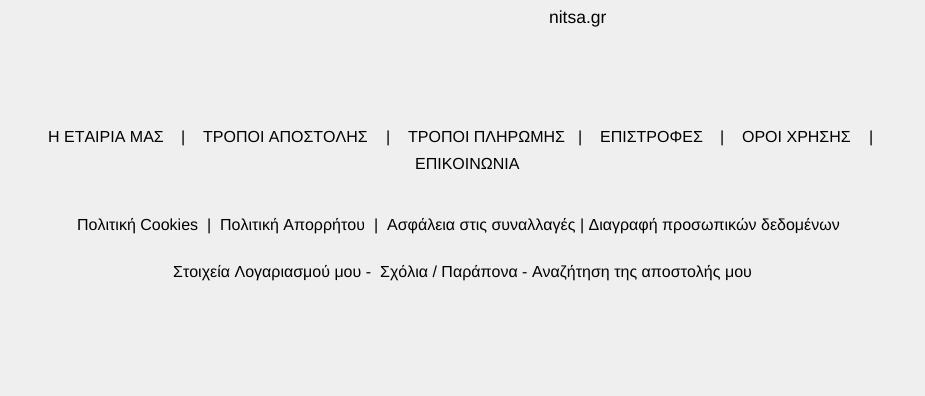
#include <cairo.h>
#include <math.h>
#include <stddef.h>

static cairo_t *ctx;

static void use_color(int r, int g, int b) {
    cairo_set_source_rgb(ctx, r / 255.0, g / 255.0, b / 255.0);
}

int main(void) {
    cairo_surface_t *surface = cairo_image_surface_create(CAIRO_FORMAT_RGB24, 925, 396);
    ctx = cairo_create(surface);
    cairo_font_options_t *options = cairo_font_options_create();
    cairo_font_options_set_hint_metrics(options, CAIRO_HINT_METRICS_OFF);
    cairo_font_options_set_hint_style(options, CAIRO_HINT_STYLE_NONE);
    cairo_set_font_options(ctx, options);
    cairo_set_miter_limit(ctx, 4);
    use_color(239, 239, 239);
    cairo_paint(ctx);
    cairo_select_font_face(ctx, "Liberation Sans", CAIRO_FONT_SLANT_NORMAL, CAIRO_FONT_WEIGHT_NORMAL);
    cairo_set_font_size(ctx, 17.5);
    use_color(0, 0, 0);
    cairo_move_to(ctx, 549, 23);
    cairo_show_text(ctx, "nitsa.gr");
    cairo_set_font_size(ctx, 16);
    cairo_move_to(ctx, 48, 142);
    cairo_show_text(ctx, "Η ΕΤΑΙΡΙΑ ΜΑΣ");
    cairo_move_to(ctx, 181, 142);
    cairo_show_text(ctx, "|");
    cairo_move_to(ctx, 203, 142);
    cairo_show_text(ctx, "ΤΡΟΠΟΙ ΑΠΟΣΤΟΛΗΣ");
    cairo_move_to(ctx, 386, 142);
    cairo_show_text(ctx, "|");
    cairo_move_to(ctx, 408, 142);
    cairo_show_text(ctx, "ΤΡΟΠΟΙ ΠΛΗΡΩΜΗΣ");
    cairo_move_to(ctx, 578, 142);
    cairo_show_text(ctx, "|");
    cairo_move_to(ctx, 600, 142);
    cairo_show_text(ctx, "ΕΠΙΣΤΡΟΦΕΣ");
    cairo_move_to(ctx, 720, 142);
    cairo_show_text(ctx, "|");
    cairo_move_to(ctx, 742, 142);
    cairo_show_text(ctx, "ΟΡΟΙ ΧΡΗΣΗΣ");
    cairo_move_to(ctx, 869, 142);
    cairo_show_text(ctx, "|");
    cairo_move_to(ctx, 415, 169);
    cairo_show_text(ctx, "ΕΠΙΚΟΙΝΩΝΙΑ");
    cairo_move_to(ctx, 77, 230);
    cairo_show_text(ctx, "Πολιτική Cookies");
    cairo_move_to(ctx, 207, 230);
    cairo_show_text(ctx, "|");
    cairo_move_to(ctx, 220, 230);
    cairo_show_text(ctx, "Πολιτική Απορρήτου");
    cairo_move_to(ctx, 374, 230);
    cairo_show_text(ctx, "|");
    cairo_move_to(ctx, 387, 230);
    cairo_show_text(ctx, "Ασφάλεια στις συναλλαγές | Διαγραφή προσωπικών δεδομένων");
    cairo_move_to(ctx, 173, 277);
    cairo_show_text(ctx, "Στοιχεία Λογαριασμού μου -");
    cairo_move_to(ctx, 380, 277);
    cairo_show_text(ctx, "Σχόλια / Παράπονα - Αναζήτηση της αποστολής μου");
    cairo_surface_write_to_png(surface, "result.png");
    cairo_font_options_destroy(options);
    cairo_destroy(ctx);
    cairo_surface_destroy(surface);
    return 0;
}
